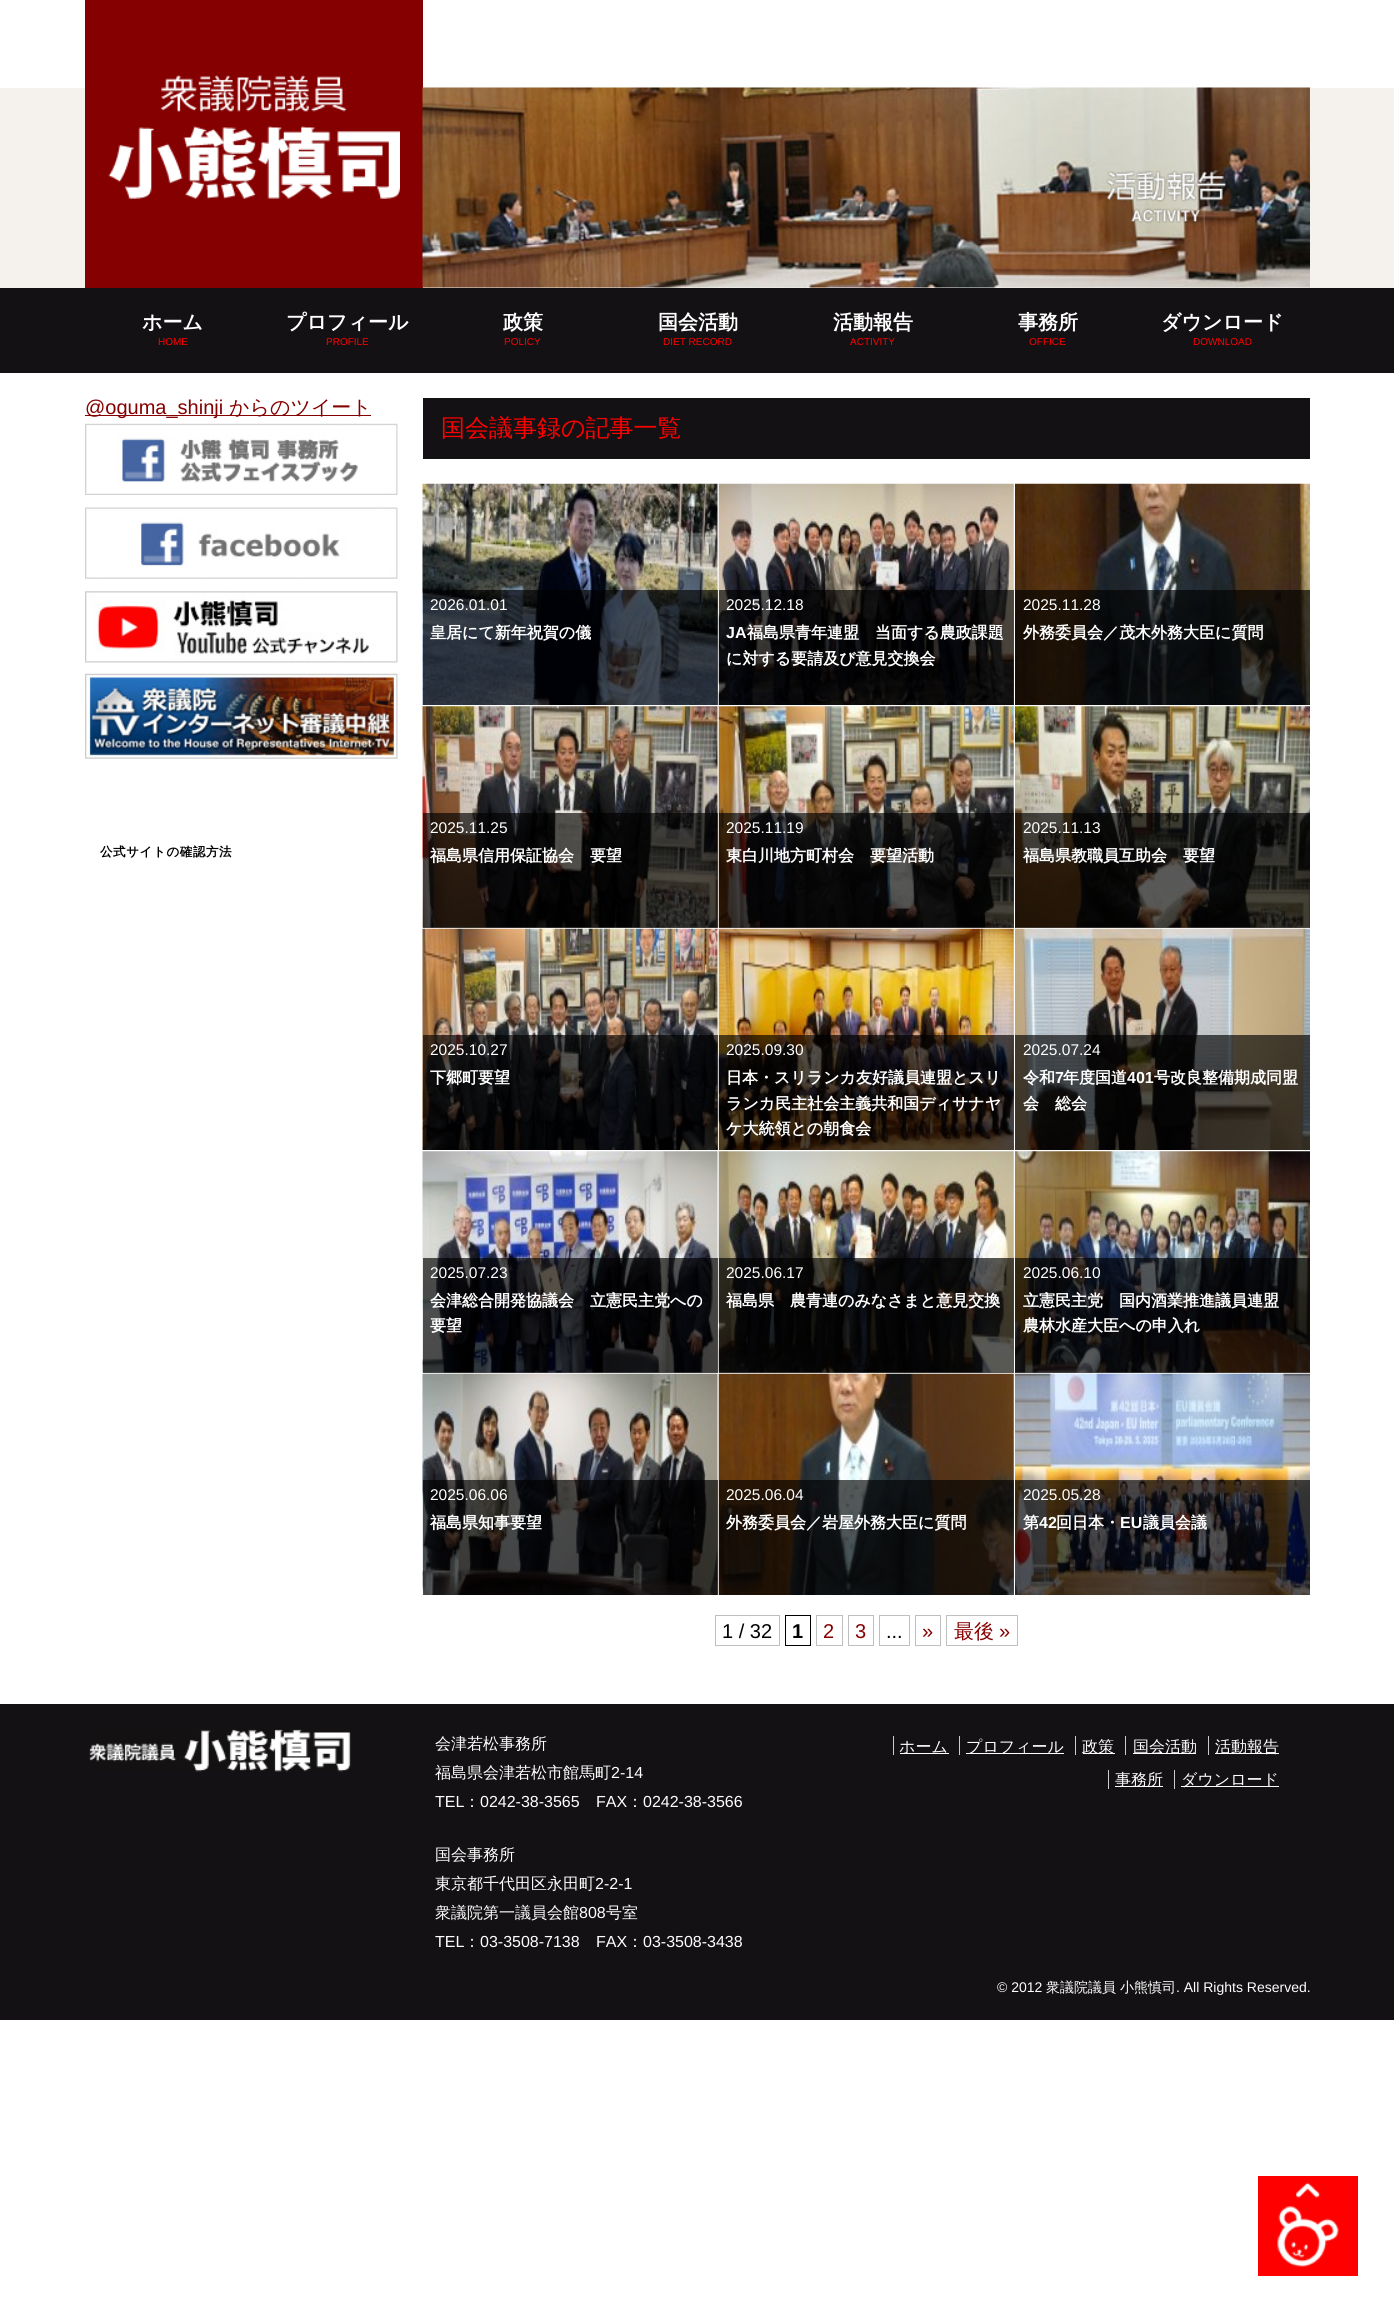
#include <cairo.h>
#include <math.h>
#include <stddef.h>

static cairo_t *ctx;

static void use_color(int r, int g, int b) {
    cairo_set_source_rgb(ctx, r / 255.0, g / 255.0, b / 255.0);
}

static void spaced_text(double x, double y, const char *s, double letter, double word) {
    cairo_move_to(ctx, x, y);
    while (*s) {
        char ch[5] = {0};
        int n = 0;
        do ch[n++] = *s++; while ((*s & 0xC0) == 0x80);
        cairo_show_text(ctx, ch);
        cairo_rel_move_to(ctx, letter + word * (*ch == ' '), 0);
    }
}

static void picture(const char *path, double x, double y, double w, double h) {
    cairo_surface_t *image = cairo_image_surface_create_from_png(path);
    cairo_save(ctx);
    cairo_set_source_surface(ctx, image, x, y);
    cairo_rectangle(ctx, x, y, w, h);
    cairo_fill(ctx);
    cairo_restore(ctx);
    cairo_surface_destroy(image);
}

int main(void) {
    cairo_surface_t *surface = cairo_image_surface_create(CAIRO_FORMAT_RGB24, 1394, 2313);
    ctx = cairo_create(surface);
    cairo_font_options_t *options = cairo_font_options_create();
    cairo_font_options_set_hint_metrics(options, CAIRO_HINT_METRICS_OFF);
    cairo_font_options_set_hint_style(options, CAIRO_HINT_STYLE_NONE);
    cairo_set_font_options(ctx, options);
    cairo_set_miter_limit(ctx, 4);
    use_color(255, 255, 255);
    cairo_paint(ctx);
    use_color(245, 242, 237);
    cairo_rectangle(ctx, 0, 88, 1394, 200);
    cairo_fill(ctx);
    use_color(133, 0, 0);
    cairo_rectangle(ctx, 85, 0, 338, 288);
    cairo_fill(ctx);
    picture("img1.png", 108, 75, 292, 124);
    picture("img2.png", 422, 87, 888, 201);
    use_color(19, 17, 19);
    cairo_rectangle(ctx, 0, 288, 1394, 85);
    cairo_fill(ctx);
    cairo_select_font_face(ctx, "WenQuanYi Zen Hei", CAIRO_FONT_SLANT_NORMAL, CAIRO_FONT_WEIGHT_BOLD);
    cairo_set_font_size(ctx, 20);
    use_color(255, 255, 255);
    cairo_move_to(ctx, 142, 329);
    cairo_show_text(ctx, "ホーム");
    cairo_select_font_face(ctx, "Liberation Sans", CAIRO_FONT_SLANT_NORMAL, CAIRO_FONT_WEIGHT_NORMAL);
    cairo_set_font_size(ctx, 10);
    use_color(255, 0, 0);
    cairo_move_to(ctx, 158, 345);
    cairo_show_text(ctx, "HOME");
    cairo_select_font_face(ctx, "WenQuanYi Zen Hei", CAIRO_FONT_SLANT_NORMAL, CAIRO_FONT_WEIGHT_BOLD);
    cairo_set_font_size(ctx, 20);
    use_color(255, 255, 255);
    cairo_move_to(ctx, 286, 329);
    cairo_show_text(ctx, "プロフィール");
    cairo_select_font_face(ctx, "Liberation Sans", CAIRO_FONT_SLANT_NORMAL, CAIRO_FONT_WEIGHT_NORMAL);
    cairo_set_font_size(ctx, 10);
    use_color(255, 0, 0);
    cairo_move_to(ctx, 326, 345);
    cairo_show_text(ctx, "PROFILE");
    cairo_select_font_face(ctx, "WenQuanYi Zen Hei", CAIRO_FONT_SLANT_NORMAL, CAIRO_FONT_WEIGHT_BOLD);
    cairo_set_font_size(ctx, 20);
    use_color(255, 255, 255);
    cairo_move_to(ctx, 503, 329);
    cairo_show_text(ctx, "政策");
    cairo_select_font_face(ctx, "Liberation Sans", CAIRO_FONT_SLANT_NORMAL, CAIRO_FONT_WEIGHT_NORMAL);
    cairo_set_font_size(ctx, 10);
    use_color(255, 0, 0);
    cairo_move_to(ctx, 504, 345);
    cairo_show_text(ctx, "POLICY");
    cairo_select_font_face(ctx, "WenQuanYi Zen Hei", CAIRO_FONT_SLANT_NORMAL, CAIRO_FONT_WEIGHT_BOLD);
    cairo_set_font_size(ctx, 20);
    use_color(255, 255, 255);
    cairo_move_to(ctx, 658, 329);
    cairo_show_text(ctx, "国会活動");
    cairo_select_font_face(ctx, "Liberation Sans", CAIRO_FONT_SLANT_NORMAL, CAIRO_FONT_WEIGHT_NORMAL);
    cairo_set_font_size(ctx, 10);
    use_color(255, 0, 0);
    cairo_move_to(ctx, 663, 345);
    cairo_show_text(ctx, "DIET RECORD");
    cairo_select_font_face(ctx, "WenQuanYi Zen Hei", CAIRO_FONT_SLANT_NORMAL, CAIRO_FONT_WEIGHT_BOLD);
    cairo_set_font_size(ctx, 20);
    use_color(255, 255, 255);
    cairo_move_to(ctx, 833, 329);
    cairo_show_text(ctx, "活動報告");
    cairo_select_font_face(ctx, "Liberation Sans", CAIRO_FONT_SLANT_NORMAL, CAIRO_FONT_WEIGHT_NORMAL);
    cairo_set_font_size(ctx, 10);
    use_color(255, 0, 0);
    cairo_move_to(ctx, 850, 345);
    cairo_show_text(ctx, "ACTIVITY");
    cairo_select_font_face(ctx, "WenQuanYi Zen Hei", CAIRO_FONT_SLANT_NORMAL, CAIRO_FONT_WEIGHT_BOLD);
    cairo_set_font_size(ctx, 20);
    use_color(255, 255, 255);
    cairo_move_to(ctx, 1018, 329);
    cairo_show_text(ctx, "事務所");
    cairo_select_font_face(ctx, "Liberation Sans", CAIRO_FONT_SLANT_NORMAL, CAIRO_FONT_WEIGHT_NORMAL);
    cairo_set_font_size(ctx, 10);
    use_color(255, 0, 0);
    cairo_move_to(ctx, 1029, 345);
    cairo_show_text(ctx, "OFFICE");
    cairo_select_font_face(ctx, "WenQuanYi Zen Hei", CAIRO_FONT_SLANT_NORMAL, CAIRO_FONT_WEIGHT_BOLD);
    cairo_set_font_size(ctx, 20);
    use_color(255, 255, 255);
    cairo_move_to(ctx, 1161, 329);
    cairo_show_text(ctx, "ダウンロード");
    cairo_select_font_face(ctx, "Liberation Sans", CAIRO_FONT_SLANT_NORMAL, CAIRO_FONT_WEIGHT_NORMAL);
    cairo_set_font_size(ctx, 10);
    use_color(255, 0, 0);
    cairo_move_to(ctx, 1193, 345);
    cairo_show_text(ctx, "DOWNLOAD");
    use_color(133, 0, 0);
    cairo_rectangle(ctx, 85, 415, 286, 1);
    cairo_fill(ctx);
    cairo_set_font_size(ctx, 20);
    cairo_move_to(ctx, 85, 414);
    cairo_show_text(ctx, "@oguma_shinji");
    cairo_select_font_face(ctx, "WenQuanYi Zen Hei Medium", CAIRO_FONT_SLANT_NORMAL, CAIRO_FONT_WEIGHT_NORMAL);
    cairo_move_to(ctx, 229, 414);
    cairo_show_text(ctx, "からのツイート");
    picture("img3.png", 85, 423, 313, 72);
    picture("img4.png", 85, 507, 313, 72);
    picture("img5.png", 85, 591, 313, 72);
    picture("img6.png", 85, 673, 313, 86);
    cairo_select_font_face(ctx, "WenQuanYi Zen Hei", CAIRO_FONT_SLANT_NORMAL, CAIRO_FONT_WEIGHT_BOLD);
    cairo_set_font_size(ctx, 12.5);
    use_color(0, 0, 0);
    spaced_text(100, 856, "公式サイトの確認方法", 0.6, 0);
    use_color(19, 17, 19);
    cairo_rectangle(ctx, 423, 398, 887, 61);
    cairo_fill(ctx);
    cairo_select_font_face(ctx, "WenQuanYi Zen Hei Medium", CAIRO_FONT_SLANT_NORMAL, CAIRO_FONT_WEIGHT_NORMAL);
    cairo_set_font_size(ctx, 24);
    use_color(255, 0, 0);
    cairo_move_to(ctx, 441, 436);
    cairo_show_text(ctx, "国会議事録の記事一覧");
    picture("img7.png", 422, 483, 296, 222);
    cairo_set_source_rgba(ctx, 0, 0, 0, 0.65);
    cairo_rectangle(ctx, 423, 590, 295, 115);
    cairo_fill(ctx);
    cairo_select_font_face(ctx, "Liberation Sans", CAIRO_FONT_SLANT_NORMAL, CAIRO_FONT_WEIGHT_NORMAL);
    cairo_set_font_size(ctx, 15.5);
    use_color(255, 255, 255);
    cairo_move_to(ctx, 430, 610);
    cairo_show_text(ctx, "2026.01.01");
    cairo_select_font_face(ctx, "WenQuanYi Zen Hei", CAIRO_FONT_SLANT_NORMAL, CAIRO_FONT_WEIGHT_BOLD);
    cairo_set_font_size(ctx, 16);
    cairo_move_to(ctx, 430, 638);
    cairo_show_text(ctx, "皇居にて新年祝賀の儀");
    picture("img8.png", 718, 483, 296, 222);
    cairo_set_source_rgba(ctx, 0, 0, 0, 0.65);
    cairo_rectangle(ctx, 719, 590, 295, 115);
    cairo_fill(ctx);
    cairo_select_font_face(ctx, "Liberation Sans", CAIRO_FONT_SLANT_NORMAL, CAIRO_FONT_WEIGHT_NORMAL);
    cairo_set_font_size(ctx, 15.5);
    use_color(255, 255, 255);
    cairo_move_to(ctx, 726, 610);
    cairo_show_text(ctx, "2025.12.18");
    cairo_select_font_face(ctx, "Liberation Sans", CAIRO_FONT_SLANT_NORMAL, CAIRO_FONT_WEIGHT_BOLD);
    cairo_set_font_size(ctx, 16);
    cairo_move_to(ctx, 726, 638);
    cairo_show_text(ctx, "JA");
    cairo_select_font_face(ctx, "WenQuanYi Zen Hei", CAIRO_FONT_SLANT_NORMAL, CAIRO_FONT_WEIGHT_BOLD);
    cairo_move_to(ctx, 747, 638);
    cairo_show_text(ctx, "福島県青年連盟　当面する農政課題");
    cairo_move_to(ctx, 726, 664);
    cairo_show_text(ctx, "に対する要請及び意見交換会");
    picture("img9.png", 1015, 483, 295, 222);
    cairo_set_source_rgba(ctx, 0, 0, 0, 0.65);
    cairo_rectangle(ctx, 1015, 590, 295, 115);
    cairo_fill(ctx);
    cairo_select_font_face(ctx, "Liberation Sans", CAIRO_FONT_SLANT_NORMAL, CAIRO_FONT_WEIGHT_NORMAL);
    cairo_set_font_size(ctx, 15.5);
    use_color(255, 255, 255);
    cairo_move_to(ctx, 1023, 610);
    cairo_show_text(ctx, "2025.11.28");
    cairo_select_font_face(ctx, "WenQuanYi Zen Hei", CAIRO_FONT_SLANT_NORMAL, CAIRO_FONT_WEIGHT_BOLD);
    cairo_set_font_size(ctx, 16);
    cairo_move_to(ctx, 1023, 638);
    cairo_show_text(ctx, "外務委員会／茂木外務大臣に質問");
    picture("img10.png", 422, 706, 296, 222);
    cairo_set_source_rgba(ctx, 0, 0, 0, 0.65);
    cairo_rectangle(ctx, 423, 813, 295, 115);
    cairo_fill(ctx);
    cairo_select_font_face(ctx, "Liberation Sans", CAIRO_FONT_SLANT_NORMAL, CAIRO_FONT_WEIGHT_NORMAL);
    cairo_set_font_size(ctx, 15.5);
    use_color(255, 255, 255);
    cairo_move_to(ctx, 430, 833);
    cairo_show_text(ctx, "2025.11.25");
    cairo_select_font_face(ctx, "WenQuanYi Zen Hei", CAIRO_FONT_SLANT_NORMAL, CAIRO_FONT_WEIGHT_BOLD);
    cairo_set_font_size(ctx, 16);
    cairo_move_to(ctx, 430, 861);
    cairo_show_text(ctx, "福島県信用保証協会　要望");
    picture("img11.png", 718, 706, 296, 222);
    cairo_set_source_rgba(ctx, 0, 0, 0, 0.65);
    cairo_rectangle(ctx, 719, 813, 295, 115);
    cairo_fill(ctx);
    cairo_select_font_face(ctx, "Liberation Sans", CAIRO_FONT_SLANT_NORMAL, CAIRO_FONT_WEIGHT_NORMAL);
    cairo_set_font_size(ctx, 15.5);
    use_color(255, 255, 255);
    cairo_move_to(ctx, 726, 833);
    cairo_show_text(ctx, "2025.11.19");
    cairo_select_font_face(ctx, "WenQuanYi Zen Hei", CAIRO_FONT_SLANT_NORMAL, CAIRO_FONT_WEIGHT_BOLD);
    cairo_set_font_size(ctx, 16);
    cairo_move_to(ctx, 726, 861);
    cairo_show_text(ctx, "東白川地方町村会　要望活動");
    picture("img12.png", 1015, 706, 295, 222);
    cairo_set_source_rgba(ctx, 0, 0, 0, 0.65);
    cairo_rectangle(ctx, 1015, 813, 295, 115);
    cairo_fill(ctx);
    cairo_select_font_face(ctx, "Liberation Sans", CAIRO_FONT_SLANT_NORMAL, CAIRO_FONT_WEIGHT_NORMAL);
    cairo_set_font_size(ctx, 15.5);
    use_color(255, 255, 255);
    cairo_move_to(ctx, 1023, 833);
    cairo_show_text(ctx, "2025.11.13");
    cairo_select_font_face(ctx, "WenQuanYi Zen Hei", CAIRO_FONT_SLANT_NORMAL, CAIRO_FONT_WEIGHT_BOLD);
    cairo_set_font_size(ctx, 16);
    cairo_move_to(ctx, 1023, 861);
    cairo_show_text(ctx, "福島県教職員互助会　要望");
    picture("img13.png", 422, 928, 296, 222);
    cairo_set_source_rgba(ctx, 0, 0, 0, 0.65);
    cairo_rectangle(ctx, 423, 1035, 295, 115);
    cairo_fill(ctx);
    cairo_select_font_face(ctx, "Liberation Sans", CAIRO_FONT_SLANT_NORMAL, CAIRO_FONT_WEIGHT_NORMAL);
    cairo_set_font_size(ctx, 15.5);
    use_color(255, 255, 255);
    cairo_move_to(ctx, 430, 1055);
    cairo_show_text(ctx, "2025.10.27");
    cairo_select_font_face(ctx, "WenQuanYi Zen Hei", CAIRO_FONT_SLANT_NORMAL, CAIRO_FONT_WEIGHT_BOLD);
    cairo_set_font_size(ctx, 16);
    cairo_move_to(ctx, 430, 1083);
    cairo_show_text(ctx, "下郷町要望");
    picture("img14.png", 718, 928, 296, 222);
    cairo_set_source_rgba(ctx, 0, 0, 0, 0.65);
    cairo_rectangle(ctx, 719, 1035, 295, 115);
    cairo_fill(ctx);
    cairo_select_font_face(ctx, "Liberation Sans", CAIRO_FONT_SLANT_NORMAL, CAIRO_FONT_WEIGHT_NORMAL);
    cairo_set_font_size(ctx, 15.5);
    use_color(255, 255, 255);
    cairo_move_to(ctx, 726, 1055);
    cairo_show_text(ctx, "2025.09.30");
    cairo_select_font_face(ctx, "WenQuanYi Zen Hei", CAIRO_FONT_SLANT_NORMAL, CAIRO_FONT_WEIGHT_BOLD);
    cairo_set_font_size(ctx, 16);
    cairo_move_to(ctx, 726, 1083);
    cairo_show_text(ctx, "日本・スリランカ友好議員連盟とスリ");
    cairo_move_to(ctx, 726, 1109);
    cairo_show_text(ctx, "ランカ民主社会主義共和国ディサナヤ");
    cairo_move_to(ctx, 726, 1134);
    cairo_show_text(ctx, "ケ大統領との朝食会");
    picture("img15.png", 1015, 928, 295, 222);
    cairo_set_source_rgba(ctx, 0, 0, 0, 0.65);
    cairo_rectangle(ctx, 1015, 1035, 295, 115);
    cairo_fill(ctx);
    cairo_select_font_face(ctx, "Liberation Sans", CAIRO_FONT_SLANT_NORMAL, CAIRO_FONT_WEIGHT_NORMAL);
    cairo_set_font_size(ctx, 15.5);
    use_color(255, 255, 255);
    cairo_move_to(ctx, 1023, 1055);
    cairo_show_text(ctx, "2025.07.24");
    cairo_select_font_face(ctx, "WenQuanYi Zen Hei", CAIRO_FONT_SLANT_NORMAL, CAIRO_FONT_WEIGHT_BOLD);
    cairo_set_font_size(ctx, 16);
    cairo_move_to(ctx, 1023, 1083);
    cairo_show_text(ctx, "令和");
    cairo_select_font_face(ctx, "Liberation Sans", CAIRO_FONT_SLANT_NORMAL, CAIRO_FONT_WEIGHT_BOLD);
    cairo_move_to(ctx, 1055, 1083);
    cairo_show_text(ctx, "7");
    cairo_select_font_face(ctx, "WenQuanYi Zen Hei", CAIRO_FONT_SLANT_NORMAL, CAIRO_FONT_WEIGHT_BOLD);
    cairo_move_to(ctx, 1063, 1083);
    cairo_show_text(ctx, "年度国道");
    cairo_select_font_face(ctx, "Liberation Sans", CAIRO_FONT_SLANT_NORMAL, CAIRO_FONT_WEIGHT_BOLD);
    cairo_move_to(ctx, 1127, 1083);
    cairo_show_text(ctx, "401");
    cairo_select_font_face(ctx, "WenQuanYi Zen Hei", CAIRO_FONT_SLANT_NORMAL, CAIRO_FONT_WEIGHT_BOLD);
    cairo_move_to(ctx, 1154, 1083);
    cairo_show_text(ctx, "号改良整備期成同盟");
    cairo_move_to(ctx, 1023, 1109);
    cairo_show_text(ctx, "会　総会");
    picture("img16.png", 422, 1151, 296, 222);
    cairo_set_source_rgba(ctx, 0, 0, 0, 0.65);
    cairo_rectangle(ctx, 423, 1258, 295, 115);
    cairo_fill(ctx);
    cairo_select_font_face(ctx, "Liberation Sans", CAIRO_FONT_SLANT_NORMAL, CAIRO_FONT_WEIGHT_NORMAL);
    cairo_set_font_size(ctx, 15.5);
    use_color(255, 255, 255);
    cairo_move_to(ctx, 430, 1278);
    cairo_show_text(ctx, "2025.07.23");
    cairo_select_font_face(ctx, "WenQuanYi Zen Hei", CAIRO_FONT_SLANT_NORMAL, CAIRO_FONT_WEIGHT_BOLD);
    cairo_set_font_size(ctx, 16);
    cairo_move_to(ctx, 430, 1306);
    cairo_show_text(ctx, "会津総合開発協議会　立憲民主党への");
    cairo_move_to(ctx, 430, 1331);
    cairo_show_text(ctx, "要望");
    picture("img17.png", 718, 1151, 296, 222);
    cairo_set_source_rgba(ctx, 0, 0, 0, 0.65);
    cairo_rectangle(ctx, 719, 1258, 295, 115);
    cairo_fill(ctx);
    cairo_select_font_face(ctx, "Liberation Sans", CAIRO_FONT_SLANT_NORMAL, CAIRO_FONT_WEIGHT_NORMAL);
    cairo_set_font_size(ctx, 15.5);
    use_color(255, 255, 255);
    cairo_move_to(ctx, 726, 1278);
    cairo_show_text(ctx, "2025.06.17");
    cairo_select_font_face(ctx, "WenQuanYi Zen Hei", CAIRO_FONT_SLANT_NORMAL, CAIRO_FONT_WEIGHT_BOLD);
    cairo_set_font_size(ctx, 16);
    cairo_move_to(ctx, 726, 1306);
    cairo_show_text(ctx, "福島県　農青連のみなさまと意見交換");
    picture("img18.png", 1015, 1151, 295, 222);
    cairo_set_source_rgba(ctx, 0, 0, 0, 0.65);
    cairo_rectangle(ctx, 1015, 1258, 295, 115);
    cairo_fill(ctx);
    cairo_select_font_face(ctx, "Liberation Sans", CAIRO_FONT_SLANT_NORMAL, CAIRO_FONT_WEIGHT_NORMAL);
    cairo_set_font_size(ctx, 15.5);
    use_color(255, 255, 255);
    cairo_move_to(ctx, 1023, 1278);
    cairo_show_text(ctx, "2025.06.10");
    cairo_select_font_face(ctx, "WenQuanYi Zen Hei", CAIRO_FONT_SLANT_NORMAL, CAIRO_FONT_WEIGHT_BOLD);
    cairo_set_font_size(ctx, 16);
    cairo_move_to(ctx, 1023, 1306);
    cairo_show_text(ctx, "立憲民主党　国内酒業推進議員連盟");
    cairo_move_to(ctx, 1023, 1331);
    cairo_show_text(ctx, "農林水産大臣への申入れ");
    picture("img19.png", 422, 1373, 296, 222);
    cairo_set_source_rgba(ctx, 0, 0, 0, 0.65);
    cairo_rectangle(ctx, 423, 1480, 295, 115);
    cairo_fill(ctx);
    cairo_select_font_face(ctx, "Liberation Sans", CAIRO_FONT_SLANT_NORMAL, CAIRO_FONT_WEIGHT_NORMAL);
    cairo_set_font_size(ctx, 15.5);
    use_color(255, 255, 255);
    cairo_move_to(ctx, 430, 1500);
    cairo_show_text(ctx, "2025.06.06");
    cairo_select_font_face(ctx, "WenQuanYi Zen Hei", CAIRO_FONT_SLANT_NORMAL, CAIRO_FONT_WEIGHT_BOLD);
    cairo_set_font_size(ctx, 16);
    cairo_move_to(ctx, 430, 1528);
    cairo_show_text(ctx, "福島県知事要望");
    picture("img20.png", 718, 1373, 296, 222);
    cairo_set_source_rgba(ctx, 0, 0, 0, 0.65);
    cairo_rectangle(ctx, 719, 1480, 295, 115);
    cairo_fill(ctx);
    cairo_select_font_face(ctx, "Liberation Sans", CAIRO_FONT_SLANT_NORMAL, CAIRO_FONT_WEIGHT_NORMAL);
    cairo_set_font_size(ctx, 15.5);
    use_color(255, 255, 255);
    cairo_move_to(ctx, 726, 1500);
    cairo_show_text(ctx, "2025.06.04");
    cairo_select_font_face(ctx, "WenQuanYi Zen Hei", CAIRO_FONT_SLANT_NORMAL, CAIRO_FONT_WEIGHT_BOLD);
    cairo_set_font_size(ctx, 16);
    cairo_move_to(ctx, 726, 1528);
    cairo_show_text(ctx, "外務委員会／岩屋外務大臣に質問");
    picture("img21.png", 1015, 1373, 295, 222);
    cairo_set_source_rgba(ctx, 0, 0, 0, 0.65);
    cairo_rectangle(ctx, 1015, 1480, 295, 115);
    cairo_fill(ctx);
    cairo_select_font_face(ctx, "Liberation Sans", CAIRO_FONT_SLANT_NORMAL, CAIRO_FONT_WEIGHT_NORMAL);
    cairo_set_font_size(ctx, 15.5);
    use_color(255, 255, 255);
    cairo_move_to(ctx, 1023, 1500);
    cairo_show_text(ctx, "2025.05.28");
    cairo_select_font_face(ctx, "WenQuanYi Zen Hei", CAIRO_FONT_SLANT_NORMAL, CAIRO_FONT_WEIGHT_BOLD);
    cairo_set_font_size(ctx, 16);
    cairo_move_to(ctx, 1023, 1528);
    cairo_show_text(ctx, "第");
    cairo_select_font_face(ctx, "Liberation Sans", CAIRO_FONT_SLANT_NORMAL, CAIRO_FONT_WEIGHT_BOLD);
    cairo_move_to(ctx, 1039, 1528);
    cairo_show_text(ctx, "42");
    cairo_select_font_face(ctx, "WenQuanYi Zen Hei", CAIRO_FONT_SLANT_NORMAL, CAIRO_FONT_WEIGHT_BOLD);
    cairo_move_to(ctx, 1056, 1528);
    cairo_show_text(ctx, "回日本・");
    cairo_select_font_face(ctx, "Liberation Sans", CAIRO_FONT_SLANT_NORMAL, CAIRO_FONT_WEIGHT_BOLD);
    cairo_move_to(ctx, 1120, 1528);
    cairo_show_text(ctx, "EU");
    cairo_select_font_face(ctx, "WenQuanYi Zen Hei", CAIRO_FONT_SLANT_NORMAL, CAIRO_FONT_WEIGHT_BOLD);
    cairo_move_to(ctx, 1143, 1528);
    cairo_show_text(ctx, "議員会議");
    cairo_rectangle(ctx, 715.5, 1615.5, 64, 30);
    use_color(191, 191, 191);
    cairo_set_line_width(ctx, 1);
    cairo_stroke(ctx);
    cairo_select_font_face(ctx, "Liberation Sans", CAIRO_FONT_SLANT_NORMAL, CAIRO_FONT_WEIGHT_NORMAL);
    cairo_set_font_size(ctx, 20);
    use_color(0, 0, 0);
    cairo_move_to(ctx, 722, 1638);
    cairo_show_text(ctx, "1 / 32");
    cairo_rectangle(ctx, 785.5, 1615.5, 25, 30);
    cairo_stroke(ctx);
    cairo_select_font_face(ctx, "Liberation Sans", CAIRO_FONT_SLANT_NORMAL, CAIRO_FONT_WEIGHT_BOLD);
    cairo_move_to(ctx, 792, 1638);
    cairo_show_text(ctx, "1");
    cairo_rectangle(ctx, 816.5, 1615.5, 26, 30);
    use_color(191, 191, 191);
    cairo_stroke(ctx);
    cairo_select_font_face(ctx, "Liberation Sans", CAIRO_FONT_SLANT_NORMAL, CAIRO_FONT_WEIGHT_NORMAL);
    use_color(133, 0, 0);
    cairo_move_to(ctx, 823, 1638);
    cairo_show_text(ctx, "2");
    cairo_rectangle(ctx, 848.5, 1615.5, 25, 30);
    use_color(191, 191, 191);
    cairo_stroke(ctx);
    use_color(133, 0, 0);
    cairo_move_to(ctx, 855, 1638);
    cairo_show_text(ctx, "3");
    cairo_rectangle(ctx, 879.5, 1615.5, 30, 30);
    use_color(191, 191, 191);
    cairo_stroke(ctx);
    use_color(0, 0, 0);
    cairo_move_to(ctx, 886, 1638);
    cairo_show_text(ctx, "...");
    cairo_rectangle(ctx, 915.5, 1615.5, 25, 30);
    use_color(191, 191, 191);
    cairo_stroke(ctx);
    use_color(133, 0, 0);
    cairo_move_to(ctx, 922, 1638);
    cairo_show_text(ctx, "»");
    cairo_rectangle(ctx, 946.5, 1615.5, 71, 30);
    use_color(191, 191, 191);
    cairo_stroke(ctx);
    cairo_select_font_face(ctx, "WenQuanYi Zen Hei Medium", CAIRO_FONT_SLANT_NORMAL, CAIRO_FONT_WEIGHT_NORMAL);
    use_color(133, 0, 0);
    cairo_move_to(ctx, 954, 1638);
    cairo_show_text(ctx, "最後");
    cairo_select_font_face(ctx, "Liberation Sans", CAIRO_FONT_SLANT_NORMAL, CAIRO_FONT_WEIGHT_NORMAL);
    cairo_move_to(ctx, 999, 1638);
    cairo_show_text(ctx, "»");
    use_color(19, 17, 19);
    cairo_rectangle(ctx, 0, 1704, 1394, 316);
    cairo_fill(ctx);
    picture("img22.png", 89, 1729, 262, 43);
    cairo_select_font_face(ctx, "WenQuanYi Zen Hei Medium", CAIRO_FONT_SLANT_NORMAL, CAIRO_FONT_WEIGHT_NORMAL);
    cairo_set_font_size(ctx, 16);
    use_color(255, 255, 255);
    cairo_move_to(ctx, 435, 1749);
    cairo_show_text(ctx, "会津若松事務所");
    cairo_move_to(ctx, 435, 1778);
    cairo_show_text(ctx, "福島県会津若松市館馬町");
    cairo_select_font_face(ctx, "Liberation Sans", CAIRO_FONT_SLANT_NORMAL, CAIRO_FONT_WEIGHT_NORMAL);
    cairo_move_to(ctx, 611, 1778);
    cairo_show_text(ctx, "2-14");
    cairo_move_to(ctx, 435, 1807);
    cairo_show_text(ctx, "TEL");
    cairo_select_font_face(ctx, "WenQuanYi Zen Hei Medium", CAIRO_FONT_SLANT_NORMAL, CAIRO_FONT_WEIGHT_NORMAL);
    cairo_move_to(ctx, 464, 1807);
    cairo_show_text(ctx, "：");
    cairo_select_font_face(ctx, "Liberation Sans", CAIRO_FONT_SLANT_NORMAL, CAIRO_FONT_WEIGHT_NORMAL);
    cairo_move_to(ctx, 480, 1807);
    cairo_show_text(ctx, "0242-38-3565");
    cairo_move_to(ctx, 596, 1807);
    cairo_show_text(ctx, "FAX");
    cairo_select_font_face(ctx, "WenQuanYi Zen Hei Medium", CAIRO_FONT_SLANT_NORMAL, CAIRO_FONT_WEIGHT_NORMAL);
    cairo_move_to(ctx, 627, 1807);
    cairo_show_text(ctx, "：");
    cairo_select_font_face(ctx, "Liberation Sans", CAIRO_FONT_SLANT_NORMAL, CAIRO_FONT_WEIGHT_NORMAL);
    cairo_move_to(ctx, 643, 1807);
    cairo_show_text(ctx, "0242-38-3566");
    cairo_select_font_face(ctx, "WenQuanYi Zen Hei Medium", CAIRO_FONT_SLANT_NORMAL, CAIRO_FONT_WEIGHT_NORMAL);
    cairo_move_to(ctx, 435, 1860);
    cairo_show_text(ctx, "国会事務所");
    cairo_move_to(ctx, 435, 1889);
    cairo_show_text(ctx, "東京都千代田区永田町");
    cairo_select_font_face(ctx, "Liberation Sans", CAIRO_FONT_SLANT_NORMAL, CAIRO_FONT_WEIGHT_NORMAL);
    cairo_move_to(ctx, 595, 1889);
    cairo_show_text(ctx, "2-2-1");
    cairo_select_font_face(ctx, "WenQuanYi Zen Hei Medium", CAIRO_FONT_SLANT_NORMAL, CAIRO_FONT_WEIGHT_NORMAL);
    cairo_move_to(ctx, 435, 1918);
    cairo_show_text(ctx, "衆議院第一議員会館");
    cairo_select_font_face(ctx, "Liberation Sans", CAIRO_FONT_SLANT_NORMAL, CAIRO_FONT_WEIGHT_NORMAL);
    cairo_move_to(ctx, 579, 1918);
    cairo_show_text(ctx, "808");
    cairo_select_font_face(ctx, "WenQuanYi Zen Hei Medium", CAIRO_FONT_SLANT_NORMAL, CAIRO_FONT_WEIGHT_NORMAL);
    cairo_move_to(ctx, 606, 1918);
    cairo_show_text(ctx, "号室");
    cairo_select_font_face(ctx, "Liberation Sans", CAIRO_FONT_SLANT_NORMAL, CAIRO_FONT_WEIGHT_NORMAL);
    cairo_move_to(ctx, 435, 1947);
    cairo_show_text(ctx, "TEL");
    cairo_select_font_face(ctx, "WenQuanYi Zen Hei Medium", CAIRO_FONT_SLANT_NORMAL, CAIRO_FONT_WEIGHT_NORMAL);
    cairo_move_to(ctx, 464, 1947);
    cairo_show_text(ctx, "：");
    cairo_select_font_face(ctx, "Liberation Sans", CAIRO_FONT_SLANT_NORMAL, CAIRO_FONT_WEIGHT_NORMAL);
    cairo_move_to(ctx, 480, 1947);
    cairo_show_text(ctx, "03-3508-7138");
    cairo_move_to(ctx, 596, 1947);
    cairo_show_text(ctx, "FAX");
    cairo_select_font_face(ctx, "WenQuanYi Zen Hei Medium", CAIRO_FONT_SLANT_NORMAL, CAIRO_FONT_WEIGHT_NORMAL);
    cairo_move_to(ctx, 627, 1947);
    cairo_show_text(ctx, "：");
    cairo_select_font_face(ctx, "Liberation Sans", CAIRO_FONT_SLANT_NORMAL, CAIRO_FONT_WEIGHT_NORMAL);
    cairo_move_to(ctx, 643, 1947);
    cairo_show_text(ctx, "03-3508-3438");
    use_color(204, 204, 204);
    cairo_rectangle(ctx, 893, 1736, 1, 19);
    cairo_fill(ctx);
    use_color(255, 255, 255);
    cairo_rectangle(ctx, 900, 1753, 49, 1);
    cairo_fill(ctx);
    cairo_select_font_face(ctx, "WenQuanYi Zen Hei Medium", CAIRO_FONT_SLANT_NORMAL, CAIRO_FONT_WEIGHT_NORMAL);
    cairo_move_to(ctx, 899, 1752);
    cairo_show_text(ctx, "ホーム");
    use_color(204, 204, 204);
    cairo_rectangle(ctx, 959, 1736, 1, 19);
    cairo_fill(ctx);
    use_color(255, 255, 255);
    cairo_rectangle(ctx, 966, 1753, 98, 1);
    cairo_fill(ctx);
    cairo_move_to(ctx, 966, 1752);
    cairo_show_text(ctx, "プロフィール");
    use_color(204, 204, 204);
    cairo_rectangle(ctx, 1075, 1736, 1, 19);
    cairo_fill(ctx);
    use_color(255, 255, 255);
    cairo_rectangle(ctx, 1083, 1753, 32, 1);
    cairo_fill(ctx);
    cairo_move_to(ctx, 1082, 1752);
    cairo_show_text(ctx, "政策");
    use_color(204, 204, 204);
    cairo_rectangle(ctx, 1125, 1736, 1, 19);
    cairo_fill(ctx);
    use_color(255, 255, 255);
    cairo_rectangle(ctx, 1133, 1753, 63, 1);
    cairo_fill(ctx);
    cairo_move_to(ctx, 1133, 1752);
    cairo_show_text(ctx, "国会活動");
    use_color(204, 204, 204);
    cairo_rectangle(ctx, 1208, 1736, 1, 19);
    cairo_fill(ctx);
    use_color(255, 255, 255);
    cairo_rectangle(ctx, 1215, 1753, 64, 1);
    cairo_fill(ctx);
    cairo_move_to(ctx, 1215, 1752);
    cairo_show_text(ctx, "活動報告");
    use_color(204, 204, 204);
    cairo_rectangle(ctx, 1108, 1770, 1, 19);
    cairo_fill(ctx);
    use_color(255, 255, 255);
    cairo_rectangle(ctx, 1115, 1786, 48, 1);
    cairo_fill(ctx);
    cairo_move_to(ctx, 1115, 1785);
    cairo_show_text(ctx, "事務所");
    use_color(204, 204, 204);
    cairo_rectangle(ctx, 1174, 1770, 1, 19);
    cairo_fill(ctx);
    use_color(255, 255, 255);
    cairo_rectangle(ctx, 1181, 1786, 98, 1);
    cairo_fill(ctx);
    cairo_move_to(ctx, 1181, 1785);
    cairo_show_text(ctx, "ダウンロード");
    cairo_select_font_face(ctx, "Liberation Sans", CAIRO_FONT_SLANT_NORMAL, CAIRO_FONT_WEIGHT_NORMAL);
    cairo_set_font_size(ctx, 14);
    cairo_move_to(ctx, 997, 1992);
    cairo_show_text(ctx, "© 2012");
    cairo_select_font_face(ctx, "WenQuanYi Zen Hei Medium", CAIRO_FONT_SLANT_NORMAL, CAIRO_FONT_WEIGHT_NORMAL);
    cairo_move_to(ctx, 1046, 1992);
    cairo_show_text(ctx, "衆議院議員");
    cairo_move_to(ctx, 1120, 1992);
    cairo_show_text(ctx, "小熊慎司");
    cairo_select_font_face(ctx, "Liberation Sans", CAIRO_FONT_SLANT_NORMAL, CAIRO_FONT_WEIGHT_NORMAL);
    cairo_move_to(ctx, 1176, 1992);
    cairo_show_text(ctx, ". All Rights Reserved.");
    use_color(255, 0, 0);
    cairo_rectangle(ctx, 1258, 2176, 100, 100);
    cairo_fill(ctx);
    picture("img23.png", 1277, 2182, 62, 85);
    cairo_surface_write_to_png(surface, "result.png");
    cairo_font_options_destroy(options);
    cairo_destroy(ctx);
    cairo_surface_destroy(surface);
    return 0;
}
